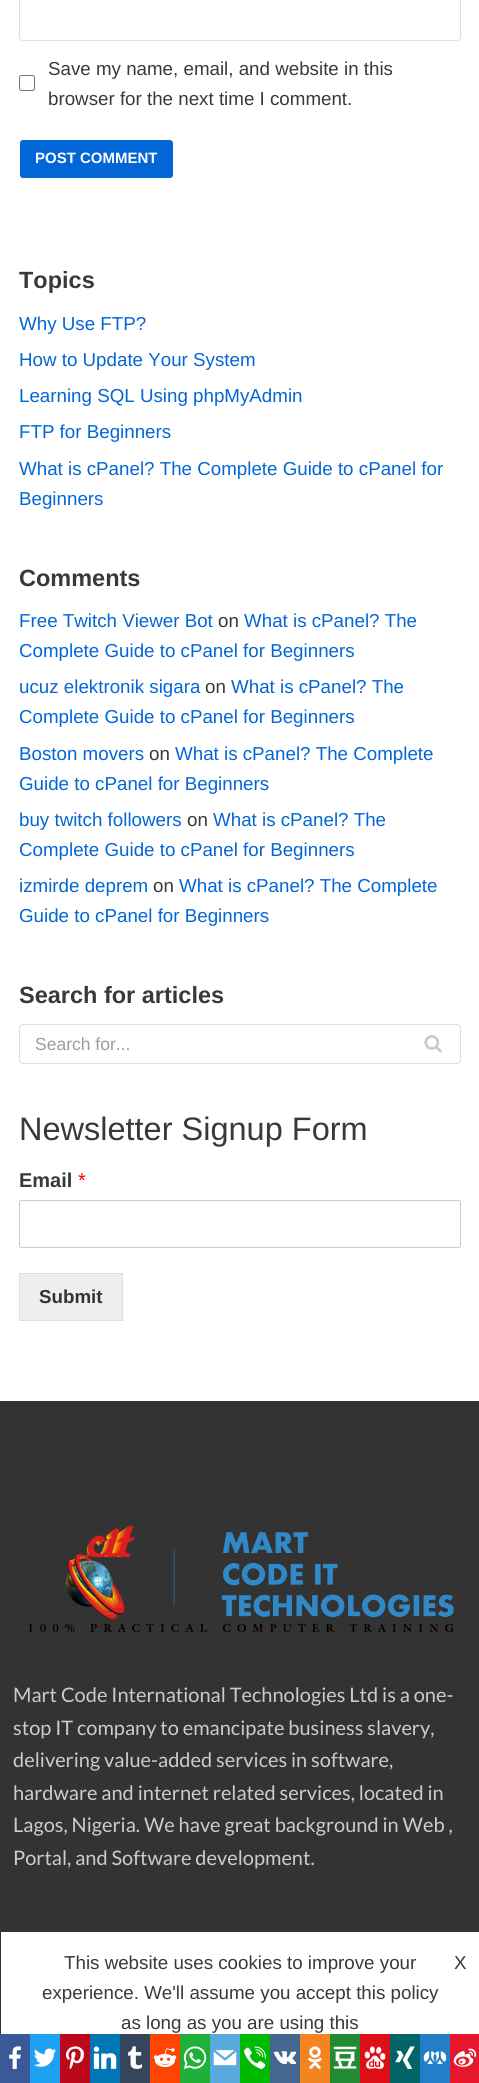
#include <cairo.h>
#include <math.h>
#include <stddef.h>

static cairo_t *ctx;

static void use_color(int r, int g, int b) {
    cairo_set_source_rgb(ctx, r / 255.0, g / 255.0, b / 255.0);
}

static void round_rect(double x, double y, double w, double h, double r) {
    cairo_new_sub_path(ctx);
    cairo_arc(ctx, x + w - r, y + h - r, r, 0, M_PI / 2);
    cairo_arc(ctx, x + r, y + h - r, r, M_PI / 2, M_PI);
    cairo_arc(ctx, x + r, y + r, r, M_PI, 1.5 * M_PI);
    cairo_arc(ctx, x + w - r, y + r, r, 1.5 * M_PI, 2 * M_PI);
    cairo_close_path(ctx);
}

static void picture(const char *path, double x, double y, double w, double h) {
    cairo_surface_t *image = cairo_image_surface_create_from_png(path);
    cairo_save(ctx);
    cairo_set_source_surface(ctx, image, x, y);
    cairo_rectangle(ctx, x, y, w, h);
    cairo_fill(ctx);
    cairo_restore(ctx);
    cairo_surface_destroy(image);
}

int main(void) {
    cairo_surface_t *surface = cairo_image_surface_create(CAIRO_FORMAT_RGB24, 479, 2083);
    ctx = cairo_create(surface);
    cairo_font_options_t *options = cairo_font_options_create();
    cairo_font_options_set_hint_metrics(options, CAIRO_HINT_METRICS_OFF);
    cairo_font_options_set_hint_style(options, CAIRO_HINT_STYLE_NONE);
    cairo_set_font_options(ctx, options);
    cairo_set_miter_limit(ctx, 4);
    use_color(255, 255, 255);
    cairo_paint(ctx);
    round_rect(19.5, -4.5, 441, 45, 3.5);
    use_color(221, 221, 221);
    cairo_set_line_width(ctx, 1);
    cairo_stroke(ctx);
    round_rect(19.5, 75.5, 15, 15, 2);
    use_color(118, 118, 118);
    cairo_stroke(ctx);
    cairo_select_font_face(ctx, "Liberation Sans", CAIRO_FONT_SLANT_NORMAL, CAIRO_FONT_WEIGHT_NORMAL);
    cairo_set_font_size(ctx, 18.75);
    use_color(57, 57, 57);
    cairo_move_to(ctx, 48, 75);
    cairo_show_text(ctx, "Save my name, email, and website in this");
    cairo_move_to(ctx, 48, 105);
    cairo_show_text(ctx, "browser for the next time I comment.");
    use_color(3, 102, 214);
    round_rect(19.5, 139.5, 154, 39, 3.5);
    cairo_fill_preserve(ctx);
    use_color(255, 255, 255);
    cairo_stroke(ctx);
    cairo_select_font_face(ctx, "Liberation Sans", CAIRO_FONT_SLANT_NORMAL, CAIRO_FONT_WEIGHT_BOLD);
    cairo_set_font_size(ctx, 15);
    cairo_move_to(ctx, 35, 163);
    cairo_show_text(ctx, "POST COMMENT");
    cairo_set_font_size(ctx, 23.5);
    use_color(57, 57, 57);
    cairo_move_to(ctx, 19, 288);
    cairo_show_text(ctx, "Topics");
    cairo_select_font_face(ctx, "Liberation Sans", CAIRO_FONT_SLANT_NORMAL, CAIRO_FONT_WEIGHT_NORMAL);
    cairo_set_font_size(ctx, 18.75);
    use_color(3, 102, 214);
    cairo_move_to(ctx, 19, 330);
    cairo_show_text(ctx, "Why Use FTP?");
    cairo_move_to(ctx, 19, 366);
    cairo_show_text(ctx, "How to Update Your System");
    cairo_move_to(ctx, 19, 402);
    cairo_show_text(ctx, "Learning SQL Using phpMyAdmin");
    cairo_move_to(ctx, 19, 438);
    cairo_show_text(ctx, "FTP for Beginners");
    cairo_move_to(ctx, 19, 475);
    cairo_show_text(ctx, "What is cPanel? The Complete Guide to cPanel for");
    cairo_move_to(ctx, 19, 505);
    cairo_show_text(ctx, "Beginners");
    cairo_select_font_face(ctx, "Liberation Sans", CAIRO_FONT_SLANT_NORMAL, CAIRO_FONT_WEIGHT_BOLD);
    cairo_set_font_size(ctx, 23.5);
    use_color(57, 57, 57);
    cairo_move_to(ctx, 19, 586);
    cairo_show_text(ctx, "Comments");
    cairo_select_font_face(ctx, "Liberation Sans", CAIRO_FONT_SLANT_NORMAL, CAIRO_FONT_WEIGHT_NORMAL);
    cairo_set_font_size(ctx, 18.75);
    use_color(3, 102, 214);
    cairo_move_to(ctx, 19, 627);
    cairo_show_text(ctx, "Free Twitch Viewer Bot");
    use_color(57, 57, 57);
    cairo_move_to(ctx, 218, 627);
    cairo_show_text(ctx, "on");
    use_color(3, 102, 214);
    cairo_move_to(ctx, 244, 627);
    cairo_show_text(ctx, "What is cPanel? The");
    cairo_move_to(ctx, 19, 657);
    cairo_show_text(ctx, "Complete Guide to cPanel for Beginners");
    cairo_move_to(ctx, 19, 693);
    cairo_show_text(ctx, "ucuz elektronik sigara");
    use_color(57, 57, 57);
    cairo_move_to(ctx, 205, 693);
    cairo_show_text(ctx, "on");
    use_color(3, 102, 214);
    cairo_move_to(ctx, 231, 693);
    cairo_show_text(ctx, "What is cPanel? The");
    cairo_move_to(ctx, 19, 723);
    cairo_show_text(ctx, "Complete Guide to cPanel for Beginners");
    cairo_move_to(ctx, 19, 760);
    cairo_show_text(ctx, "Boston movers");
    use_color(57, 57, 57);
    cairo_move_to(ctx, 149, 760);
    cairo_show_text(ctx, "on");
    use_color(3, 102, 214);
    cairo_move_to(ctx, 175, 760);
    cairo_show_text(ctx, "What is cPanel? The Complete");
    cairo_move_to(ctx, 19, 790);
    cairo_show_text(ctx, "Guide to cPanel for Beginners");
    cairo_move_to(ctx, 19, 826);
    cairo_show_text(ctx, "buy twitch followers");
    use_color(57, 57, 57);
    cairo_move_to(ctx, 187, 826);
    cairo_show_text(ctx, "on");
    use_color(3, 102, 214);
    cairo_move_to(ctx, 213, 826);
    cairo_show_text(ctx, "What is cPanel? The");
    cairo_move_to(ctx, 19, 856);
    cairo_show_text(ctx, "Complete Guide to cPanel for Beginners");
    cairo_move_to(ctx, 19, 892);
    cairo_show_text(ctx, "izmirde deprem");
    use_color(57, 57, 57);
    cairo_move_to(ctx, 153, 892);
    cairo_show_text(ctx, "on");
    use_color(3, 102, 214);
    cairo_move_to(ctx, 179, 892);
    cairo_show_text(ctx, "What is cPanel? The Complete");
    cairo_move_to(ctx, 19, 922);
    cairo_show_text(ctx, "Guide to cPanel for Beginners");
    cairo_select_font_face(ctx, "Liberation Sans", CAIRO_FONT_SLANT_NORMAL, CAIRO_FONT_WEIGHT_BOLD);
    cairo_set_font_size(ctx, 23.5);
    use_color(57, 57, 57);
    cairo_move_to(ctx, 19, 1003);
    cairo_show_text(ctx, "Search for articles");
    round_rect(19.5, 1024.5, 441, 39, 3.5);
    use_color(221, 221, 221);
    cairo_stroke(ctx);
    cairo_select_font_face(ctx, "Liberation Sans", CAIRO_FONT_SLANT_NORMAL, CAIRO_FONT_WEIGHT_NORMAL);
    cairo_set_font_size(ctx, 17.5);
    use_color(156, 156, 156);
    cairo_move_to(ctx, 35, 1050);
    cairo_show_text(ctx, "Search for...");
    picture("img1.png", 424, 1035, 18, 18);
    cairo_set_font_size(ctx, 32.5);
    use_color(57, 57, 57);
    cairo_move_to(ctx, 19, 1140);
    cairo_show_text(ctx, "Newsletter Signup Form");
    cairo_select_font_face(ctx, "Liberation Sans", CAIRO_FONT_SLANT_NORMAL, CAIRO_FONT_WEIGHT_BOLD);
    cairo_set_font_size(ctx, 20);
    cairo_move_to(ctx, 19, 1187);
    cairo_show_text(ctx, "Email");
    cairo_select_font_face(ctx, "Liberation Sans", CAIRO_FONT_SLANT_NORMAL, CAIRO_FONT_WEIGHT_NORMAL);
    use_color(255, 0, 0);
    cairo_move_to(ctx, 78, 1187);
    cairo_show_text(ctx, "*");
    round_rect(19.5, 1200.5, 441, 47, 2);
    use_color(204, 204, 204);
    cairo_stroke(ctx);
    use_color(238, 238, 238);
    cairo_rectangle(ctx, 19.5, 1273.5, 103, 47);
    cairo_fill_preserve(ctx);
    use_color(221, 221, 221);
    cairo_stroke(ctx);
    cairo_select_font_face(ctx, "Liberation Sans", CAIRO_FONT_SLANT_NORMAL, CAIRO_FONT_WEIGHT_BOLD);
    cairo_set_font_size(ctx, 18.75);
    use_color(51, 51, 51);
    cairo_move_to(ctx, 39, 1303);
    cairo_show_text(ctx, "Submit");
    cairo_rectangle(ctx, 0, 1401, 479, 530);
    cairo_fill(ctx);
    picture("img2.png", 28, 1525, 426, 107);
    cairo_select_font_face(ctx, "Lato", CAIRO_FONT_SLANT_NORMAL, CAIRO_FONT_WEIGHT_NORMAL);
    cairo_set_font_size(ctx, 20);
    use_color(204, 204, 204);
    cairo_move_to(ctx, 13, 1702);
    cairo_show_text(ctx, "Mart Code International Technologies Ltd is a one-");
    cairo_move_to(ctx, 13, 1735);
    cairo_show_text(ctx, "stop IT company to emancipate business slavery,");
    cairo_move_to(ctx, 13, 1767);
    cairo_show_text(ctx, "delivering value-added services in software,");
    cairo_move_to(ctx, 13, 1800);
    cairo_show_text(ctx, "hardware and internet related services, located in");
    cairo_move_to(ctx, 13, 1832);
    cairo_show_text(ctx, "Lagos, Nigeria. We have great background in Web ,");
    cairo_move_to(ctx, 13, 1865);
    cairo_show_text(ctx, "Portal, and Software development.");
    cairo_rectangle(ctx, 0.5, 1931.5, 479, 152);
    use_color(51, 51, 51);
    cairo_stroke(ctx);
    cairo_select_font_face(ctx, "Liberation Sans", CAIRO_FONT_SLANT_NORMAL, CAIRO_FONT_WEIGHT_NORMAL);
    cairo_set_font_size(ctx, 18.75);
    use_color(57, 57, 57);
    cairo_move_to(ctx, 64, 1969);
    cairo_show_text(ctx, "This website uses cookies to improve your");
    cairo_move_to(ctx, 454, 1969);
    cairo_show_text(ctx, "X");
    cairo_move_to(ctx, 42, 1999);
    cairo_show_text(ctx, "experience. We'll assume you accept this policy");
    cairo_move_to(ctx, 121, 2029);
    cairo_show_text(ctx, "as long as you are using this");
    use_color(59, 89, 152);
    cairo_rectangle(ctx, 0, 2034, 30, 49);
    cairo_fill(ctx);
    picture("img3.png", 9, 2046, 12, 23);
    use_color(29, 161, 242);
    cairo_rectangle(ctx, 30, 2034, 30, 49);
    cairo_fill(ctx);
    picture("img4.png", 34, 2048, 23, 19);
    use_color(189, 8, 28);
    cairo_rectangle(ctx, 60, 2034, 30, 49);
    cairo_fill(ctx);
    picture("img5.png", 66, 2046, 18, 23);
    use_color(0, 119, 181);
    cairo_rectangle(ctx, 90, 2034, 30, 49);
    cairo_fill(ctx);
    picture("img6.png", 93, 2046, 24, 23);
    use_color(53, 70, 92);
    cairo_rectangle(ctx, 120, 2034, 30, 49);
    cairo_fill(ctx);
    picture("img7.png", 128, 2046, 14, 23);
    use_color(255, 69, 0);
    cairo_rectangle(ctx, 150, 2034, 30, 49);
    cairo_fill(ctx);
    picture("img8.png", 153, 2048, 24, 20);
    use_color(32, 176, 56);
    cairo_rectangle(ctx, 180, 2034, 30, 49);
    cairo_fill(ctx);
    picture("img9.png", 183, 2046, 24, 23);
    use_color(88, 169, 222);
    cairo_rectangle(ctx, 210, 2034, 30, 49);
    cairo_fill(ctx);
    picture("img10.png", 213, 2050, 24, 16);
    use_color(0, 185, 1);
    cairo_rectangle(ctx, 240, 2034, 30, 49);
    cairo_fill(ctx);
    picture("img11.png", 244, 2046, 22, 23);
    use_color(69, 102, 142);
    cairo_rectangle(ctx, 270, 2034, 30, 49);
    cairo_fill(ctx);
    picture("img12.png", 273, 2051, 24, 14);
    use_color(244, 132, 32);
    cairo_rectangle(ctx, 300, 2034, 30, 49);
    cairo_fill(ctx);
    picture("img13.png", 308, 2046, 14, 23);
    use_color(34, 138, 49);
    cairo_rectangle(ctx, 330, 2034, 30, 49);
    cairo_fill(ctx);
    picture("img14.png", 333, 2046, 24, 23);
    use_color(222, 15, 23);
    cairo_rectangle(ctx, 360, 2034, 30, 49);
    cairo_fill(ctx);
    picture("img15.png", 364, 2046, 22, 23);
    use_color(2, 100, 102);
    cairo_rectangle(ctx, 390, 2034, 30, 49);
    cairo_fill(ctx);
    picture("img16.png", 395, 2046, 20, 23);
    use_color(34, 126, 199);
    cairo_rectangle(ctx, 420, 2034, 30, 49);
    cairo_fill(ctx);
    picture("img17.png", 423, 2051, 24, 13);
    use_color(230, 22, 45);
    cairo_rectangle(ctx, 450, 2034, 29, 49);
    cairo_fill(ctx);
    picture("img18.png", 453, 2048, 24, 19);
    cairo_surface_write_to_png(surface, "result.png");
    cairo_font_options_destroy(options);
    cairo_destroy(ctx);
    cairo_surface_destroy(surface);
    return 0;
}
